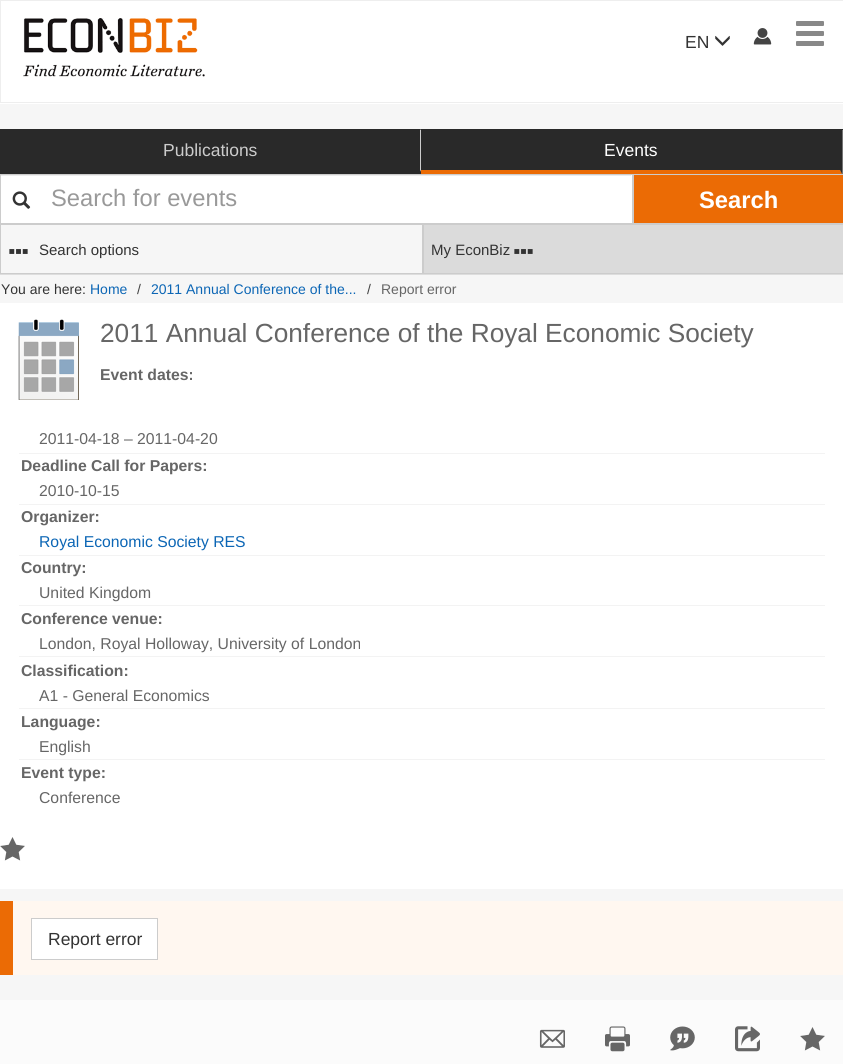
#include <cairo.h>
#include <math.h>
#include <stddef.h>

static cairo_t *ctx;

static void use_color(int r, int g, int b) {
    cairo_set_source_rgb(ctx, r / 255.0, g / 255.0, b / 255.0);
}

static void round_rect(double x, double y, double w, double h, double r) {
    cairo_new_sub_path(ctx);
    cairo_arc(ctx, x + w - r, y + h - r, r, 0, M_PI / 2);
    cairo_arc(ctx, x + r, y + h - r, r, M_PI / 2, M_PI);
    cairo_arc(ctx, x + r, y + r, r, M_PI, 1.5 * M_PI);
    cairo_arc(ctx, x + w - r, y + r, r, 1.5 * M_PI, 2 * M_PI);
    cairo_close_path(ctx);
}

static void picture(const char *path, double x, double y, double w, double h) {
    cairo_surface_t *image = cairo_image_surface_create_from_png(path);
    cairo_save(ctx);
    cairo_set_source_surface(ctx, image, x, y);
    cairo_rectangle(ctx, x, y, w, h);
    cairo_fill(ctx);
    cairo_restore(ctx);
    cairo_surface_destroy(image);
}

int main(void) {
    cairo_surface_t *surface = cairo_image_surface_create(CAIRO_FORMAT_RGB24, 843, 1064);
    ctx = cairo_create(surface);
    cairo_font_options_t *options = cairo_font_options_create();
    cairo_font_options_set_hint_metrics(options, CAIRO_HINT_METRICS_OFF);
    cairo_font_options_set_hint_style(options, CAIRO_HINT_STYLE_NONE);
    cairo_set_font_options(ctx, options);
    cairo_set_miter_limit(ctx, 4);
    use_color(255, 255, 255);
    cairo_paint(ctx);
    cairo_rectangle(ctx, 0.5, 0.5, 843, 102);
    use_color(238, 238, 238);
    cairo_set_line_width(ctx, 1);
    cairo_stroke(ctx);
    picture("img1.png", 23, 18, 182, 59);
    cairo_select_font_face(ctx, "Liberation Sans", CAIRO_FONT_SLANT_NORMAL, CAIRO_FONT_WEIGHT_NORMAL);
    cairo_set_font_size(ctx, 17.5);
    use_color(51, 51, 51);
    cairo_move_to(ctx, 685, 48);
    cairo_show_text(ctx, "EN");
    picture("img2.png", 715, 35, 15, 11);
    picture("img3.png", 753, 28, 19, 17);
    use_color(136, 136, 136);
    round_rect(796, 21, 28, 5, 1);
    cairo_fill(ctx);
    round_rect(796, 31, 28, 5, 1);
    cairo_fill(ctx);
    round_rect(796, 41, 28, 5, 1);
    cairo_fill(ctx);
    use_color(246, 246, 246);
    cairo_rectangle(ctx, 0, 104, 843, 199);
    cairo_fill(ctx);
    use_color(116, 116, 116);
    cairo_rectangle(ctx, 420, 129, 423, 45);
    cairo_fill(ctx);
    use_color(41, 41, 41);
    cairo_rectangle(ctx, 0, 130, 420, 40);
    cairo_fill(ctx);
    cairo_new_path(ctx);
    cairo_move_to(ctx, 0, 129);
    cairo_line_to(ctx, 422, 129);
    cairo_line_to(ctx, 420, 130);
    cairo_line_to(ctx, 0, 130);
    cairo_close_path(ctx);
    cairo_fill(ctx);
    use_color(204, 204, 204);
    cairo_new_path(ctx);
    cairo_move_to(ctx, 422, 129);
    cairo_line_to(ctx, 422, 174);
    cairo_line_to(ctx, 420, 170);
    cairo_line_to(ctx, 420, 130);
    cairo_close_path(ctx);
    cairo_fill(ctx);
    use_color(41, 41, 41);
    cairo_new_path(ctx);
    cairo_move_to(ctx, 422, 174);
    cairo_line_to(ctx, 0, 174);
    cairo_line_to(ctx, 0, 170);
    cairo_line_to(ctx, 420, 170);
    cairo_close_path(ctx);
    cairo_fill(ctx);
    use_color(204, 204, 204);
    cairo_move_to(ctx, 163, 156);
    cairo_show_text(ctx, "Publications");
    use_color(41, 41, 41);
    cairo_rectangle(ctx, 421, 130, 419, 40);
    cairo_fill(ctx);
    cairo_rectangle(ctx, 421, 129, 422, 1);
    cairo_fill(ctx);
    cairo_new_path(ctx);
    cairo_move_to(ctx, 842, 129);
    cairo_line_to(ctx, 842, 174);
    cairo_line_to(ctx, 840, 170);
    cairo_line_to(ctx, 840, 130);
    cairo_close_path(ctx);
    cairo_fill(ctx);
    use_color(235, 107, 5);
    cairo_new_path(ctx);
    cairo_move_to(ctx, 842, 174);
    cairo_line_to(ctx, 421, 174);
    cairo_line_to(ctx, 421, 170);
    cairo_line_to(ctx, 840, 170);
    cairo_close_path(ctx);
    cairo_fill(ctx);
    use_color(255, 255, 255);
    cairo_move_to(ctx, 604, 156);
    cairo_show_text(ctx, "Events");
    cairo_rectangle(ctx, 1, 175, 631, 48);
    cairo_fill(ctx);
    use_color(236, 236, 236);
    cairo_rectangle(ctx, 1, 175, 630, 1);
    cairo_fill(ctx);
    cairo_rectangle(ctx, 0.5, 174.5, 632, 49);
    use_color(204, 204, 204);
    cairo_stroke(ctx);
    picture("img4.png", 12, 191, 19, 18);
    cairo_set_font_size(ctx, 23.75);
    use_color(153, 153, 153);
    cairo_move_to(ctx, 51, 206);
    cairo_show_text(ctx, "Search for events");
    use_color(235, 107, 5);
    cairo_rectangle(ctx, 634, 175, 209, 48);
    cairo_fill(ctx);
    use_color(204, 204, 204);
    cairo_rectangle(ctx, 633, 174, 210, 1);
    cairo_fill(ctx);
    cairo_rectangle(ctx, 633, 223, 210, 1);
    cairo_fill(ctx);
    cairo_rectangle(ctx, 633, 174, 1, 50);
    cairo_fill(ctx);
    cairo_select_font_face(ctx, "Liberation Sans", CAIRO_FONT_SLANT_NORMAL, CAIRO_FONT_WEIGHT_BOLD);
    use_color(255, 255, 255);
    cairo_move_to(ctx, 699, 208);
    cairo_show_text(ctx, "Search");
    use_color(221, 221, 221);
    cairo_rectangle(ctx, 0, 274, 843, 1);
    cairo_fill(ctx);
    cairo_rectangle(ctx, 0.5, 224.5, 422, 49);
    use_color(204, 204, 204);
    cairo_stroke(ctx);
    picture("img5.png", 9, 249, 19, 5);
    cairo_select_font_face(ctx, "Liberation Sans", CAIRO_FONT_SLANT_NORMAL, CAIRO_FONT_WEIGHT_NORMAL);
    cairo_set_font_size(ctx, 15);
    use_color(51, 51, 51);
    cairo_move_to(ctx, 39, 255);
    cairo_show_text(ctx, "Search options");
    use_color(219, 219, 219);
    cairo_rectangle(ctx, 423.5, 224.5, 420, 49);
    cairo_fill_preserve(ctx);
    use_color(204, 204, 204);
    cairo_stroke(ctx);
    use_color(51, 51, 51);
    cairo_move_to(ctx, 431, 255);
    cairo_show_text(ctx, "My EconBiz");
    picture("img6.png", 514, 249, 19, 5);
    cairo_set_font_size(ctx, 14);
    cairo_move_to(ctx, 1, 294);
    cairo_show_text(ctx, "You are here:");
    use_color(12, 102, 181);
    cairo_move_to(ctx, 90, 294);
    cairo_show_text(ctx, "Home");
    use_color(68, 68, 68);
    cairo_move_to(ctx, 137, 294);
    cairo_show_text(ctx, "/");
    use_color(12, 102, 181);
    cairo_move_to(ctx, 151, 294);
    cairo_show_text(ctx, "2011 Annual Conference of the...");
    use_color(68, 68, 68);
    cairo_move_to(ctx, 367, 294);
    cairo_show_text(ctx, "/");
    use_color(102, 102, 102);
    cairo_move_to(ctx, 381, 294);
    cairo_show_text(ctx, "Report error");
    use_color(246, 246, 246);
    cairo_rectangle(ctx, 0, 889, 843, 111);
    cairo_fill(ctx);
    picture("img7.png", 18, 319, 61, 81);
    cairo_set_font_size(ctx, 26.25);
    use_color(102, 102, 102);
    cairo_move_to(ctx, 100, 342);
    cairo_show_text(ctx, "2011 Annual Conference of the Royal Economic Society");
    use_color(243, 243, 243);
    cairo_rectangle(ctx, 19, 453, 806, 1);
    cairo_fill(ctx);
    cairo_select_font_face(ctx, "Liberation Sans", CAIRO_FONT_SLANT_NORMAL, CAIRO_FONT_WEIGHT_BOLD);
    cairo_set_font_size(ctx, 15.75);
    use_color(102, 102, 102);
    cairo_move_to(ctx, 100, 380);
    cairo_show_text(ctx, "Event dates:");
    cairo_select_font_face(ctx, "Liberation Sans", CAIRO_FONT_SLANT_NORMAL, CAIRO_FONT_WEIGHT_NORMAL);
    cairo_move_to(ctx, 39, 444);
    cairo_show_text(ctx, "2011-04-18 – 2011-04-20");
    use_color(243, 243, 243);
    cairo_rectangle(ctx, 19, 504, 806, 1);
    cairo_fill(ctx);
    cairo_select_font_face(ctx, "Liberation Sans", CAIRO_FONT_SLANT_NORMAL, CAIRO_FONT_WEIGHT_BOLD);
    use_color(102, 102, 102);
    cairo_move_to(ctx, 21, 471);
    cairo_show_text(ctx, "Deadline Call for Papers:");
    cairo_select_font_face(ctx, "Liberation Sans", CAIRO_FONT_SLANT_NORMAL, CAIRO_FONT_WEIGHT_NORMAL);
    cairo_move_to(ctx, 39, 496);
    cairo_show_text(ctx, "2010-10-15");
    use_color(243, 243, 243);
    cairo_rectangle(ctx, 19, 555, 806, 1);
    cairo_fill(ctx);
    cairo_select_font_face(ctx, "Liberation Sans", CAIRO_FONT_SLANT_NORMAL, CAIRO_FONT_WEIGHT_BOLD);
    use_color(102, 102, 102);
    cairo_move_to(ctx, 21, 522);
    cairo_show_text(ctx, "Organizer:");
    cairo_select_font_face(ctx, "Liberation Sans", CAIRO_FONT_SLANT_NORMAL, CAIRO_FONT_WEIGHT_NORMAL);
    use_color(12, 102, 181);
    cairo_move_to(ctx, 39, 547);
    cairo_show_text(ctx, "Royal Economic Society RES");
    use_color(243, 243, 243);
    cairo_rectangle(ctx, 19, 605, 806, 1);
    cairo_fill(ctx);
    cairo_select_font_face(ctx, "Liberation Sans", CAIRO_FONT_SLANT_NORMAL, CAIRO_FONT_WEIGHT_BOLD);
    use_color(102, 102, 102);
    cairo_move_to(ctx, 21, 573);
    cairo_show_text(ctx, "Country:");
    cairo_select_font_face(ctx, "Liberation Sans", CAIRO_FONT_SLANT_NORMAL, CAIRO_FONT_WEIGHT_NORMAL);
    cairo_move_to(ctx, 39, 598);
    cairo_show_text(ctx, "United Kingdom");
    use_color(243, 243, 243);
    cairo_rectangle(ctx, 19, 656, 806, 1);
    cairo_fill(ctx);
    cairo_select_font_face(ctx, "Liberation Sans", CAIRO_FONT_SLANT_NORMAL, CAIRO_FONT_WEIGHT_BOLD);
    use_color(102, 102, 102);
    cairo_move_to(ctx, 21, 624);
    cairo_show_text(ctx, "Conference venue:");
    cairo_select_font_face(ctx, "Liberation Sans", CAIRO_FONT_SLANT_NORMAL, CAIRO_FONT_WEIGHT_NORMAL);
    cairo_move_to(ctx, 39, 649);
    cairo_show_text(ctx, "London, Royal Holloway, University of London");
    use_color(243, 243, 243);
    cairo_rectangle(ctx, 19, 708, 806, 1);
    cairo_fill(ctx);
    cairo_select_font_face(ctx, "Liberation Sans", CAIRO_FONT_SLANT_NORMAL, CAIRO_FONT_WEIGHT_BOLD);
    use_color(102, 102, 102);
    cairo_move_to(ctx, 21, 676);
    cairo_show_text(ctx, "Classification:");
    cairo_select_font_face(ctx, "Liberation Sans", CAIRO_FONT_SLANT_NORMAL, CAIRO_FONT_WEIGHT_NORMAL);
    cairo_move_to(ctx, 39, 701);
    cairo_show_text(ctx, "A1 - General Economics");
    use_color(243, 243, 243);
    cairo_rectangle(ctx, 19, 759, 806, 1);
    cairo_fill(ctx);
    cairo_select_font_face(ctx, "Liberation Sans", CAIRO_FONT_SLANT_NORMAL, CAIRO_FONT_WEIGHT_BOLD);
    use_color(102, 102, 102);
    cairo_move_to(ctx, 21, 727);
    cairo_show_text(ctx, "Language:");
    cairo_select_font_face(ctx, "Liberation Sans", CAIRO_FONT_SLANT_NORMAL, CAIRO_FONT_WEIGHT_NORMAL);
    cairo_move_to(ctx, 39, 752);
    cairo_show_text(ctx, "English");
    cairo_select_font_face(ctx, "Liberation Sans", CAIRO_FONT_SLANT_NORMAL, CAIRO_FONT_WEIGHT_BOLD);
    cairo_move_to(ctx, 21, 778);
    cairo_show_text(ctx, "Event type:");
    cairo_select_font_face(ctx, "Liberation Sans", CAIRO_FONT_SLANT_NORMAL, CAIRO_FONT_WEIGHT_NORMAL);
    cairo_move_to(ctx, 39, 803);
    cairo_show_text(ctx, "Conference");
    picture("img8.png", 0, 837, 25, 24);
    use_color(255, 247, 240);
    cairo_rectangle(ctx, 13, 901, 830, 74);
    cairo_fill(ctx);
    use_color(235, 107, 5);
    cairo_rectangle(ctx, 0, 901, 13, 74);
    cairo_fill(ctx);
    use_color(255, 255, 255);
    cairo_rectangle(ctx, 31.5, 918.5, 126, 41);
    cairo_fill_preserve(ctx);
    use_color(204, 204, 204);
    cairo_stroke(ctx);
    cairo_set_font_size(ctx, 17.5);
    use_color(51, 51, 51);
    cairo_move_to(ctx, 48, 945);
    cairo_show_text(ctx, "Report error");
    use_color(251, 251, 251);
    cairo_rectangle(ctx, 0, 1000, 843, 64);
    cairo_fill(ctx);
    picture("img9.png", 539, 1029, 26, 19);
    picture("img10.png", 605, 1026, 25, 26);
    picture("img11.png", 670, 1026, 25, 25);
    picture("img12.png", 735, 1026, 25, 26);
    picture("img13.png", 800, 1027, 25, 24);
    cairo_surface_write_to_png(surface, "result.png");
    cairo_font_options_destroy(options);
    cairo_destroy(ctx);
    cairo_surface_destroy(surface);
    return 0;
}
